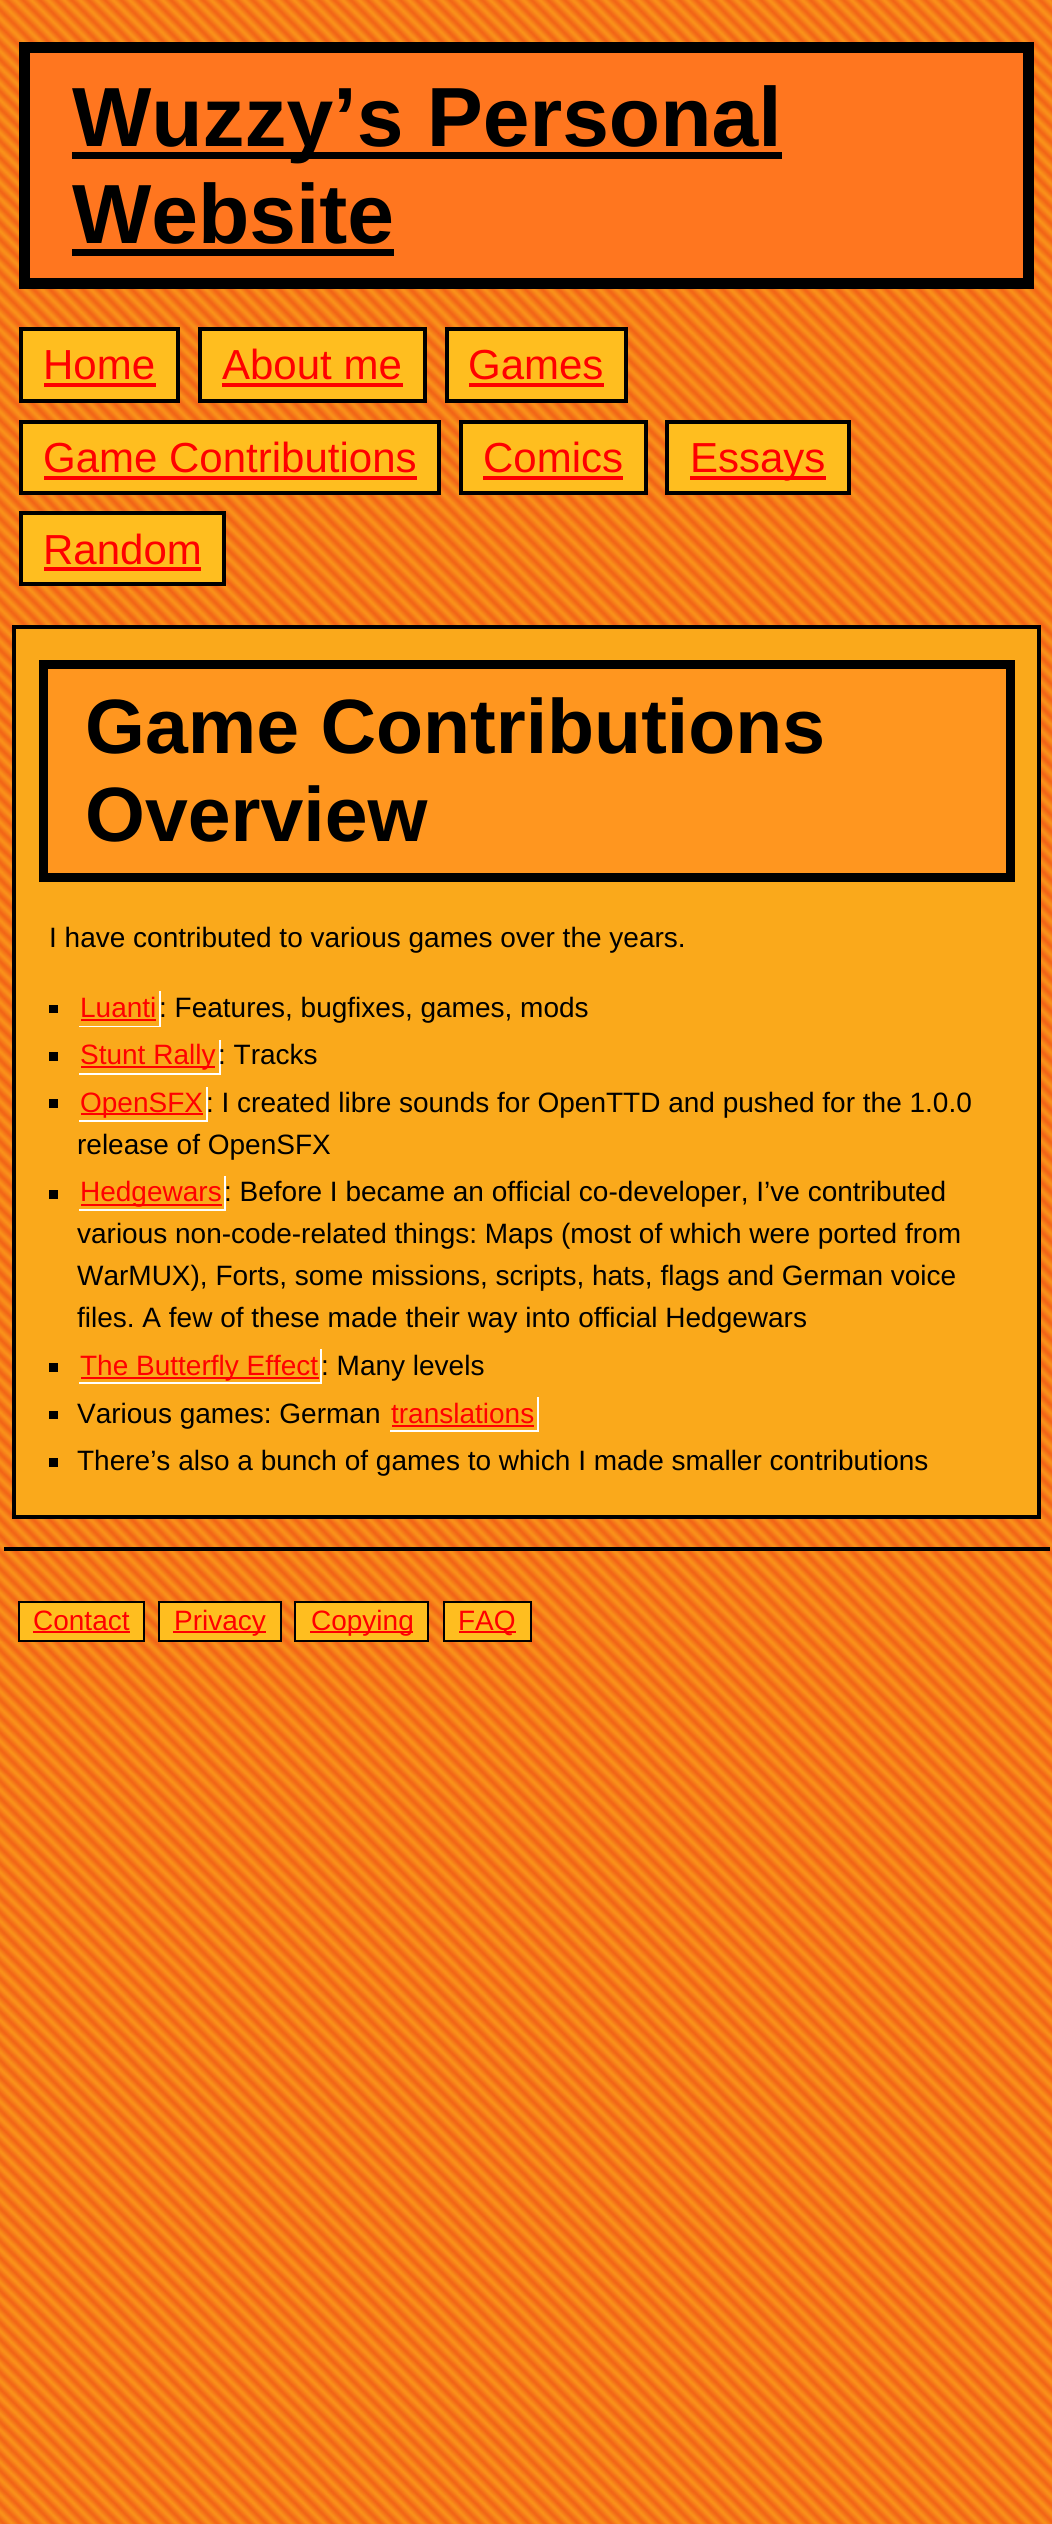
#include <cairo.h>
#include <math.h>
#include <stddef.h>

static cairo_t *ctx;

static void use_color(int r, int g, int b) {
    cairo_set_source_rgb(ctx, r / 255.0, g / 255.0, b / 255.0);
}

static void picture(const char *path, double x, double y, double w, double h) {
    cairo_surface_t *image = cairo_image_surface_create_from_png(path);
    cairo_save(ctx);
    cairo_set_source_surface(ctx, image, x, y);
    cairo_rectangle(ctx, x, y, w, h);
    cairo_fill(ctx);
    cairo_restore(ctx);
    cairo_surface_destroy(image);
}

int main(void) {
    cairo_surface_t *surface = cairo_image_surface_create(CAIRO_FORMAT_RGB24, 1052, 2524);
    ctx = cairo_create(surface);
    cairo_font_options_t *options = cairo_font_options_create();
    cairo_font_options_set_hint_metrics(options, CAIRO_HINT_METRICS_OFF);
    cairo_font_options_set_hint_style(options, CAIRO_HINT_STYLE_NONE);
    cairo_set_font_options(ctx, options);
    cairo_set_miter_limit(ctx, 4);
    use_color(255, 255, 255);
    cairo_paint(ctx);
    picture("img1.png", 0, 0, 1052, 2524);
    use_color(255, 118, 31);
    cairo_rectangle(ctx, 24.5, 47.5, 1004, 236);
    cairo_fill_preserve(ctx);
    use_color(0, 0, 0);
    cairo_set_line_width(ctx, 11);
    cairo_stroke(ctx);
    cairo_rectangle(ctx, 72, 152, 710, 7);
    cairo_fill(ctx);
    cairo_select_font_face(ctx, "Liberation Sans", CAIRO_FONT_SLANT_NORMAL, CAIRO_FONT_WEIGHT_BOLD);
    cairo_set_font_size(ctx, 84);
    cairo_move_to(ctx, 72, 146);
    cairo_show_text(ctx, "Wuzzy’s Personal");
    cairo_move_to(ctx, 72, 243);
    cairo_show_text(ctx, "Website");
    cairo_rectangle(ctx, 72, 249, 322, 7);
    cairo_fill(ctx);
    use_color(255, 190, 31);
    cairo_rectangle(ctx, 21, 329, 157, 72);
    cairo_fill_preserve(ctx);
    use_color(0, 0, 0);
    cairo_set_line_width(ctx, 4);
    cairo_stroke(ctx);
    cairo_select_font_face(ctx, "Liberation Sans", CAIRO_FONT_SLANT_NORMAL, CAIRO_FONT_WEIGHT_NORMAL);
    cairo_set_font_size(ctx, 42);
    use_color(255, 0, 0);
    cairo_move_to(ctx, 43, 379);
    cairo_show_text(ctx, "Home");
    cairo_rectangle(ctx, 44, 383, 112, 4);
    cairo_fill(ctx);
    use_color(255, 190, 31);
    cairo_rectangle(ctx, 200, 329, 225, 72);
    cairo_fill_preserve(ctx);
    use_color(0, 0, 0);
    cairo_stroke(ctx);
    use_color(255, 0, 0);
    cairo_move_to(ctx, 222, 379);
    cairo_show_text(ctx, "About me");
    cairo_rectangle(ctx, 222, 383, 181, 4);
    cairo_fill(ctx);
    use_color(255, 190, 31);
    cairo_rectangle(ctx, 447, 329, 179, 72);
    cairo_fill_preserve(ctx);
    use_color(0, 0, 0);
    cairo_stroke(ctx);
    use_color(255, 0, 0);
    cairo_move_to(ctx, 468, 379);
    cairo_show_text(ctx, "Games");
    cairo_rectangle(ctx, 469, 383, 135, 4);
    cairo_fill(ctx);
    use_color(255, 190, 31);
    cairo_rectangle(ctx, 21, 422, 418, 71);
    cairo_fill_preserve(ctx);
    use_color(0, 0, 0);
    cairo_stroke(ctx);
    use_color(255, 0, 0);
    cairo_move_to(ctx, 43, 472);
    cairo_show_text(ctx, "Game Contributions");
    cairo_rectangle(ctx, 44, 476, 373, 4);
    cairo_fill(ctx);
    use_color(255, 190, 31);
    cairo_rectangle(ctx, 461, 422, 185, 71);
    cairo_fill_preserve(ctx);
    use_color(0, 0, 0);
    cairo_stroke(ctx);
    use_color(255, 0, 0);
    cairo_move_to(ctx, 483, 472);
    cairo_show_text(ctx, "Comics");
    cairo_rectangle(ctx, 483, 476, 140, 4);
    cairo_fill(ctx);
    use_color(255, 190, 31);
    cairo_rectangle(ctx, 667, 422, 182, 71);
    cairo_fill_preserve(ctx);
    use_color(0, 0, 0);
    cairo_stroke(ctx);
    use_color(255, 0, 0);
    cairo_rectangle(ctx, 690, 476, 136, 4);
    cairo_fill(ctx);
    cairo_move_to(ctx, 690, 472);
    cairo_show_text(ctx, "Essays");
    use_color(255, 190, 31);
    cairo_rectangle(ctx, 21, 513, 203, 71);
    cairo_fill_preserve(ctx);
    use_color(0, 0, 0);
    cairo_stroke(ctx);
    use_color(255, 0, 0);
    cairo_move_to(ctx, 43, 564);
    cairo_show_text(ctx, "Random");
    cairo_rectangle(ctx, 44, 567, 157, 4);
    cairo_fill(ctx);
    use_color(250, 169, 27);
    cairo_rectangle(ctx, 14, 627, 1025, 890);
    cairo_fill_preserve(ctx);
    use_color(0, 0, 0);
    cairo_stroke(ctx);
    use_color(255, 150, 31);
    cairo_rectangle(ctx, 43.5, 664.5, 967, 213);
    cairo_fill_preserve(ctx);
    use_color(0, 0, 0);
    cairo_set_line_width(ctx, 9);
    cairo_stroke(ctx);
    cairo_select_font_face(ctx, "Liberation Sans", CAIRO_FONT_SLANT_NORMAL, CAIRO_FONT_WEIGHT_BOLD);
    cairo_set_font_size(ctx, 77);
    cairo_move_to(ctx, 85, 753);
    cairo_show_text(ctx, "Game Contributions");
    cairo_move_to(ctx, 85, 841);
    cairo_show_text(ctx, "Overview");
    cairo_select_font_face(ctx, "Liberation Sans", CAIRO_FONT_SLANT_NORMAL, CAIRO_FONT_WEIGHT_NORMAL);
    cairo_set_font_size(ctx, 28);
    cairo_move_to(ctx, 49, 947);
    cairo_show_text(ctx, "I have contributed to various games over the years.");
    cairo_rectangle(ctx, 49, 1005, 9, 8);
    cairo_fill(ctx);
    use_color(255, 255, 255);
    cairo_new_path(ctx);
    cairo_move_to(ctx, 79, 1026);
    cairo_line_to(ctx, 79, 1027);
    cairo_line_to(ctx, 161, 1027);
    cairo_line_to(ctx, 161, 991);
    cairo_line_to(ctx, 159, 991);
    cairo_line_to(ctx, 159, 1026);
    cairo_close_path(ctx);
    cairo_fill(ctx);
    use_color(255, 0, 0);
    cairo_move_to(ctx, 80, 1017);
    cairo_show_text(ctx, "Luanti");
    cairo_rectangle(ctx, 81, 1019, 75, 2);
    cairo_fill(ctx);
    use_color(0, 0, 0);
    cairo_move_to(ctx, 159, 1017);
    cairo_show_text(ctx, ": Features, bugfixes, games, mods");
    cairo_rectangle(ctx, 49, 1052, 9, 9);
    cairo_fill(ctx);
    use_color(255, 255, 255);
    cairo_new_path(ctx);
    cairo_move_to(ctx, 79, 1073);
    cairo_line_to(ctx, 79, 1075);
    cairo_line_to(ctx, 221, 1075);
    cairo_line_to(ctx, 221, 1040);
    cairo_line_to(ctx, 219, 1040);
    cairo_line_to(ctx, 219, 1073);
    cairo_close_path(ctx);
    cairo_fill(ctx);
    use_color(255, 0, 0);
    cairo_rectangle(ctx, 81, 1066, 134, 2);
    cairo_fill(ctx);
    cairo_move_to(ctx, 80, 1064);
    cairo_show_text(ctx, "Stunt Rally");
    use_color(0, 0, 0);
    cairo_move_to(ctx, 218, 1064);
    cairo_show_text(ctx, ": Tracks");
    cairo_rectangle(ctx, 49, 1099, 9, 9);
    cairo_fill(ctx);
    use_color(255, 255, 255);
    cairo_new_path(ctx);
    cairo_move_to(ctx, 79, 1120);
    cairo_line_to(ctx, 79, 1122);
    cairo_line_to(ctx, 208, 1122);
    cairo_line_to(ctx, 208, 1087);
    cairo_line_to(ctx, 206, 1087);
    cairo_line_to(ctx, 206, 1120);
    cairo_close_path(ctx);
    cairo_fill(ctx);
    use_color(255, 0, 0);
    cairo_rectangle(ctx, 81, 1113, 122, 2);
    cairo_fill(ctx);
    cairo_move_to(ctx, 80, 1112);
    cairo_show_text(ctx, "OpenSFX");
    use_color(0, 0, 0);
    cairo_move_to(ctx, 206, 1112);
    cairo_show_text(ctx, ": I created libre sounds for OpenTTD and pushed for the 1.0.0");
    cairo_move_to(ctx, 77, 1154);
    cairo_show_text(ctx, "release of OpenSFX");
    cairo_rectangle(ctx, 49, 1190, 9, 9);
    cairo_fill(ctx);
    use_color(255, 255, 255);
    cairo_new_path(ctx);
    cairo_move_to(ctx, 79, 1209);
    cairo_line_to(ctx, 79, 1211);
    cairo_line_to(ctx, 226, 1211);
    cairo_line_to(ctx, 226, 1176);
    cairo_line_to(ctx, 224, 1176);
    cairo_line_to(ctx, 224, 1209);
    cairo_close_path(ctx);
    cairo_fill(ctx);
    use_color(255, 0, 0);
    cairo_rectangle(ctx, 81, 1204, 141, 2);
    cairo_fill(ctx);
    cairo_move_to(ctx, 80, 1201);
    cairo_show_text(ctx, "Hedgewars");
    use_color(0, 0, 0);
    cairo_move_to(ctx, 224, 1201);
    cairo_show_text(ctx, ": Before I became an official co-developer, I’ve contributed");
    cairo_move_to(ctx, 77, 1243);
    cairo_show_text(ctx, "various non-code-related things: Maps (most of which were ported from");
    cairo_move_to(ctx, 77, 1285);
    cairo_show_text(ctx, "WarMUX), Forts, some missions, scripts, hats, flags and German voice");
    cairo_move_to(ctx, 77, 1327);
    cairo_show_text(ctx, "files. A few of these made their way into official Hedgewars");
    cairo_rectangle(ctx, 49, 1363, 9, 9);
    cairo_fill(ctx);
    use_color(255, 255, 255);
    cairo_new_path(ctx);
    cairo_move_to(ctx, 79, 1382);
    cairo_line_to(ctx, 79, 1384);
    cairo_line_to(ctx, 322, 1384);
    cairo_line_to(ctx, 322, 1349);
    cairo_line_to(ctx, 320, 1349);
    cairo_line_to(ctx, 320, 1382);
    cairo_close_path(ctx);
    cairo_fill(ctx);
    use_color(255, 0, 0);
    cairo_rectangle(ctx, 81, 1377, 238, 2);
    cairo_fill(ctx);
    cairo_move_to(ctx, 80, 1375);
    cairo_show_text(ctx, "The Butterfly Effect");
    use_color(0, 0, 0);
    cairo_move_to(ctx, 321, 1375);
    cairo_show_text(ctx, ": Many levels");
    cairo_rectangle(ctx, 49, 1411, 9, 8);
    cairo_fill(ctx);
    cairo_move_to(ctx, 77, 1423);
    cairo_show_text(ctx, "Various games: German");
    use_color(255, 255, 255);
    cairo_new_path(ctx);
    cairo_move_to(ctx, 390, 1430);
    cairo_line_to(ctx, 390, 1432);
    cairo_line_to(ctx, 539, 1432);
    cairo_line_to(ctx, 539, 1397);
    cairo_line_to(ctx, 537, 1397);
    cairo_line_to(ctx, 537, 1430);
    cairo_close_path(ctx);
    cairo_fill(ctx);
    use_color(255, 0, 0);
    cairo_move_to(ctx, 391, 1423);
    cairo_show_text(ctx, "translations");
    cairo_rectangle(ctx, 392, 1425, 142, 2);
    cairo_fill(ctx);
    use_color(0, 0, 0);
    cairo_rectangle(ctx, 49, 1458, 9, 9);
    cairo_fill(ctx);
    cairo_move_to(ctx, 77, 1470);
    cairo_show_text(ctx, "There’s also a bunch of games to which I made smaller contributions");
    cairo_rectangle(ctx, 4, 1547, 1046, 4);
    cairo_fill(ctx);
    use_color(255, 190, 31);
    cairo_rectangle(ctx, 19, 1602, 125, 39);
    cairo_fill_preserve(ctx);
    use_color(0, 0, 0);
    cairo_set_line_width(ctx, 2);
    cairo_stroke(ctx);
    use_color(255, 0, 0);
    cairo_move_to(ctx, 33, 1630);
    cairo_show_text(ctx, "Contact");
    cairo_rectangle(ctx, 33, 1631, 97, 2);
    cairo_fill(ctx);
    use_color(255, 190, 31);
    cairo_rectangle(ctx, 159, 1602, 122, 39);
    cairo_fill_preserve(ctx);
    use_color(0, 0, 0);
    cairo_stroke(ctx);
    use_color(255, 0, 0);
    cairo_rectangle(ctx, 173, 1631, 93, 2);
    cairo_fill(ctx);
    cairo_move_to(ctx, 174, 1630);
    cairo_show_text(ctx, "Privacy");
    use_color(255, 190, 31);
    cairo_rectangle(ctx, 295, 1602, 133, 39);
    cairo_fill_preserve(ctx);
    use_color(0, 0, 0);
    cairo_stroke(ctx);
    use_color(255, 0, 0);
    cairo_rectangle(ctx, 310, 1631, 103, 2);
    cairo_fill(ctx);
    cairo_move_to(ctx, 311, 1630);
    cairo_show_text(ctx, "Copying");
    use_color(255, 190, 31);
    cairo_rectangle(ctx, 444, 1602, 87, 39);
    cairo_fill_preserve(ctx);
    use_color(0, 0, 0);
    cairo_stroke(ctx);
    use_color(255, 0, 0);
    cairo_rectangle(ctx, 459, 1631, 57, 2);
    cairo_fill(ctx);
    cairo_move_to(ctx, 458, 1630);
    cairo_show_text(ctx, "FAQ");
    cairo_surface_write_to_png(surface, "result.png");
    cairo_font_options_destroy(options);
    cairo_destroy(ctx);
    cairo_surface_destroy(surface);
    return 0;
}
